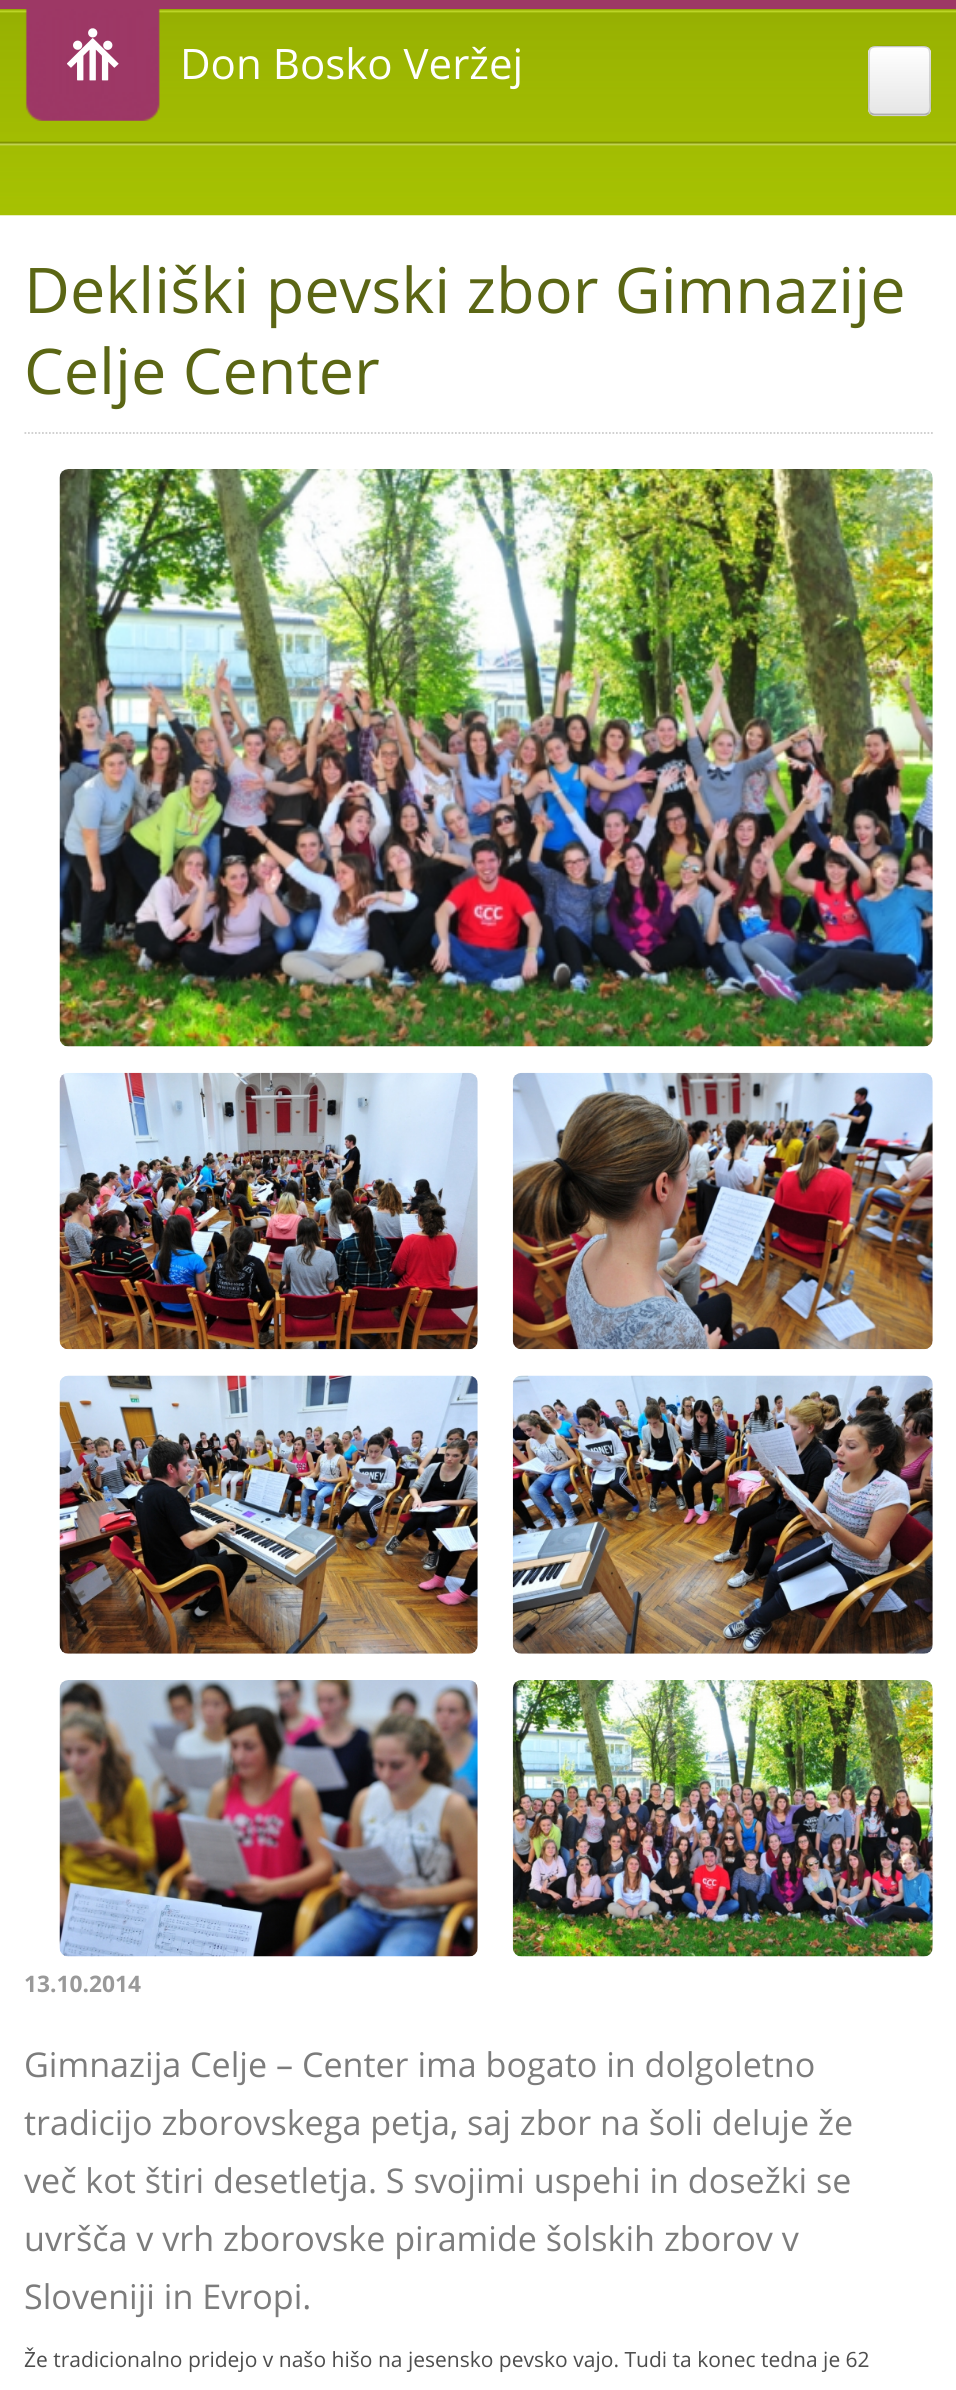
#include <cairo.h>
#include <math.h>
#include <stddef.h>

static cairo_t *ctx;

static void use_color(int r, int g, int b) {
    cairo_set_source_rgb(ctx, r / 255.0, g / 255.0, b / 255.0);
}

static void round_rect(double x, double y, double w, double h, double r) {
    cairo_new_sub_path(ctx);
    cairo_arc(ctx, x + w - r, y + h - r, r, 0, M_PI / 2);
    cairo_arc(ctx, x + r, y + h - r, r, M_PI / 2, M_PI);
    cairo_arc(ctx, x + r, y + r, r, M_PI, 1.5 * M_PI);
    cairo_arc(ctx, x + w - r, y + r, r, 1.5 * M_PI, 2 * M_PI);
    cairo_close_path(ctx);
}

static void picture(const char *path, double x, double y, double w, double h) {
    cairo_surface_t *image = cairo_image_surface_create_from_png(path);
    cairo_save(ctx);
    cairo_set_source_surface(ctx, image, x, y);
    cairo_rectangle(ctx, x, y, w, h);
    cairo_fill(ctx);
    cairo_restore(ctx);
    cairo_surface_destroy(image);
}

int main(void) {
    cairo_surface_t *surface = cairo_image_surface_create(CAIRO_FORMAT_RGB24, 956, 2390);
    ctx = cairo_create(surface);
    cairo_font_options_t *options = cairo_font_options_create();
    cairo_font_options_set_hint_metrics(options, CAIRO_HINT_METRICS_OFF);
    cairo_font_options_set_hint_style(options, CAIRO_HINT_STYLE_NONE);
    cairo_set_font_options(ctx, options);
    cairo_set_miter_limit(ctx, 4);
    cairo_pattern_t *gradient;
    use_color(255, 255, 255);
    cairo_paint(ctx);
    picture("img1.png", 0, 9, 956, 207);
    use_color(157, 56, 101);
    cairo_rectangle(ctx, 0, 0, 956, 9);
    cairo_fill(ctx);
    picture("img3.png", 25, 9, 135, 112);
    picture("img2.png", 67, 28, 52, 53);
    cairo_select_font_face(ctx, "Open Sans", CAIRO_FONT_SLANT_NORMAL, CAIRO_FONT_WEIGHT_NORMAL);
    cairo_set_font_size(ctx, 42);
    use_color(255, 255, 255);
    cairo_move_to(ctx, 180, 79);
    cairo_show_text(ctx, "Don Bosko Veržej");
    use_color(167, 191, 21);
    cairo_new_path(ctx);
    cairo_move_to(ctx, 868, 108);
    cairo_curve_to(ctx, 868, 118, 875, 117, 883, 117);
    cairo_line_to(ctx, 916, 117);
    cairo_curve_to(ctx, 924, 117, 931, 118, 931, 108);
    cairo_curve_to(ctx, 931, 112, 928, 116, 924, 116);
    cairo_line_to(ctx, 875, 116);
    cairo_curve_to(ctx, 871, 116, 868, 112, 868, 108);
    cairo_close_path(ctx);
    cairo_fill(ctx);
    use_color(232, 232, 232);
    round_rect(868, 46, 63, 70, 7);
    cairo_fill(ctx);
    cairo_save(ctx);
    round_rect(868, 46, 63, 70, 7);
    cairo_clip(ctx);
    gradient = cairo_pattern_create_linear(900, 47, 900, 114);
    cairo_pattern_add_color_stop_rgba(gradient, 0, 1, 1, 1, 1);
    cairo_pattern_add_color_stop_rgba(gradient, 1, 0.902, 0.902, 0.902, 1);
    cairo_set_source(ctx, gradient);
    cairo_pattern_destroy(gradient);
    cairo_rectangle(ctx, 868, 47, 63, 67);
    cairo_fill(ctx);
    cairo_restore(ctx);
    use_color(255, 255, 255);
    cairo_new_path(ctx);
    cairo_move_to(ctx, 875, 49);
    cairo_line_to(ctx, 924, 49);
    cairo_curve_to(ctx, 927, 49, 929, 51, 929, 54);
    cairo_curve_to(ctx, 929, 45, 923, 47, 916, 47);
    cairo_line_to(ctx, 883, 47);
    cairo_curve_to(ctx, 876, 47, 870, 45, 870, 54);
    cairo_curve_to(ctx, 870, 51, 872, 49, 875, 49);
    cairo_close_path(ctx);
    cairo_fill(ctx);
    cairo_new_path(ctx);
    cairo_move_to(ctx, 928.5, 113);
    cairo_curve_to(ctx, 927, 114, 925.5, 114.5, 924, 114.5);
    cairo_line_to(ctx, 875, 114.5);
    cairo_curve_to(ctx, 873.5, 114.5, 872, 114, 870.5, 113);
    cairo_set_source_rgba(ctx, 0, 0, 0, 0.25);
    cairo_set_line_width(ctx, 1.8);
    cairo_stroke(ctx);
    cairo_new_path(ctx);
    cairo_move_to(ctx, 870.5, 113);
    cairo_curve_to(ctx, 867.5, 109.5, 869, 102.5, 869, 99);
    cairo_line_to(ctx, 869, 62);
    cairo_curve_to(ctx, 869, 47, 868, 46.5, 883, 46.5);
    cairo_line_to(ctx, 916, 46.5);
    cairo_curve_to(ctx, 931, 46.5, 930, 47, 930, 62);
    cairo_line_to(ctx, 930, 99);
    cairo_curve_to(ctx, 930, 102.5, 931.5, 109.5, 928.5, 113);
    cairo_set_source_rgba(ctx, 0, 0, 0, 0.15);
    cairo_stroke(ctx);
    cairo_new_path(ctx);
    cairo_move_to(ctx, 24.5, 433);
    cairo_line_to(ctx, 933, 433);
    use_color(204, 204, 204);
    cairo_set_dash(ctx, (double[]){1.75, 1.75}, 2, 0);
    cairo_stroke(ctx);
    cairo_set_font_size(ctx, 63);
    use_color(91, 102, 20);
    cairo_move_to(ctx, 24, 313);
    cairo_show_text(ctx, "Dekliški pevski zbor Gimnazije");
    cairo_move_to(ctx, 24, 394);
    cairo_show_text(ctx, "Celje Center");
    picture("img4.png", 59, 469, 874, 578);
    picture("img5.png", 59, 1072, 419, 278);
    picture("img6.png", 512, 1072, 421, 278);
    picture("img7.png", 59, 1375, 419, 279);
    picture("img8.png", 512, 1375, 421, 279);
    picture("img9.png", 59, 1680, 419, 277);
    picture("img10.png", 512, 1680, 421, 277);
    cairo_select_font_face(ctx, "Open Sans", CAIRO_FONT_SLANT_NORMAL, CAIRO_FONT_WEIGHT_BOLD);
    cairo_set_font_size(ctx, 22.75);
    use_color(153, 153, 153);
    cairo_move_to(ctx, 24, 1992);
    cairo_show_text(ctx, "13.10.2014");
    cairo_select_font_face(ctx, "Open Sans", CAIRO_FONT_SLANT_NORMAL, CAIRO_FONT_WEIGHT_NORMAL);
    cairo_set_font_size(ctx, 34.1);
    use_color(124, 124, 124);
    cairo_move_to(ctx, 24, 2077);
    cairo_show_text(ctx, "Gimnazija Celje – Center ima bogato in dolgoletno");
    cairo_move_to(ctx, 24, 2135);
    cairo_show_text(ctx, "tradicijo zborovskega petja, saj zbor na šoli deluje že");
    cairo_move_to(ctx, 24, 2193);
    cairo_show_text(ctx, "več kot štiri desetletja. S svojimi uspehi in dosežki se");
    cairo_move_to(ctx, 24, 2251);
    cairo_show_text(ctx, "uvršča v vrh zborovske piramide šolskih zborov v");
    cairo_move_to(ctx, 24, 2309);
    cairo_show_text(ctx, "Sloveniji in Evropi.");
    cairo_set_font_size(ctx, 21);
    use_color(77, 77, 77);
    cairo_move_to(ctx, 24, 2367);
    cairo_show_text(ctx, "Že tradicionalno pridejo v našo hišo na jesensko pevsko vajo. Tudi ta konec tedna je 62");
    cairo_surface_write_to_png(surface, "result.png");
    cairo_font_options_destroy(options);
    cairo_destroy(ctx);
    cairo_surface_destroy(surface);
    return 0;
}
